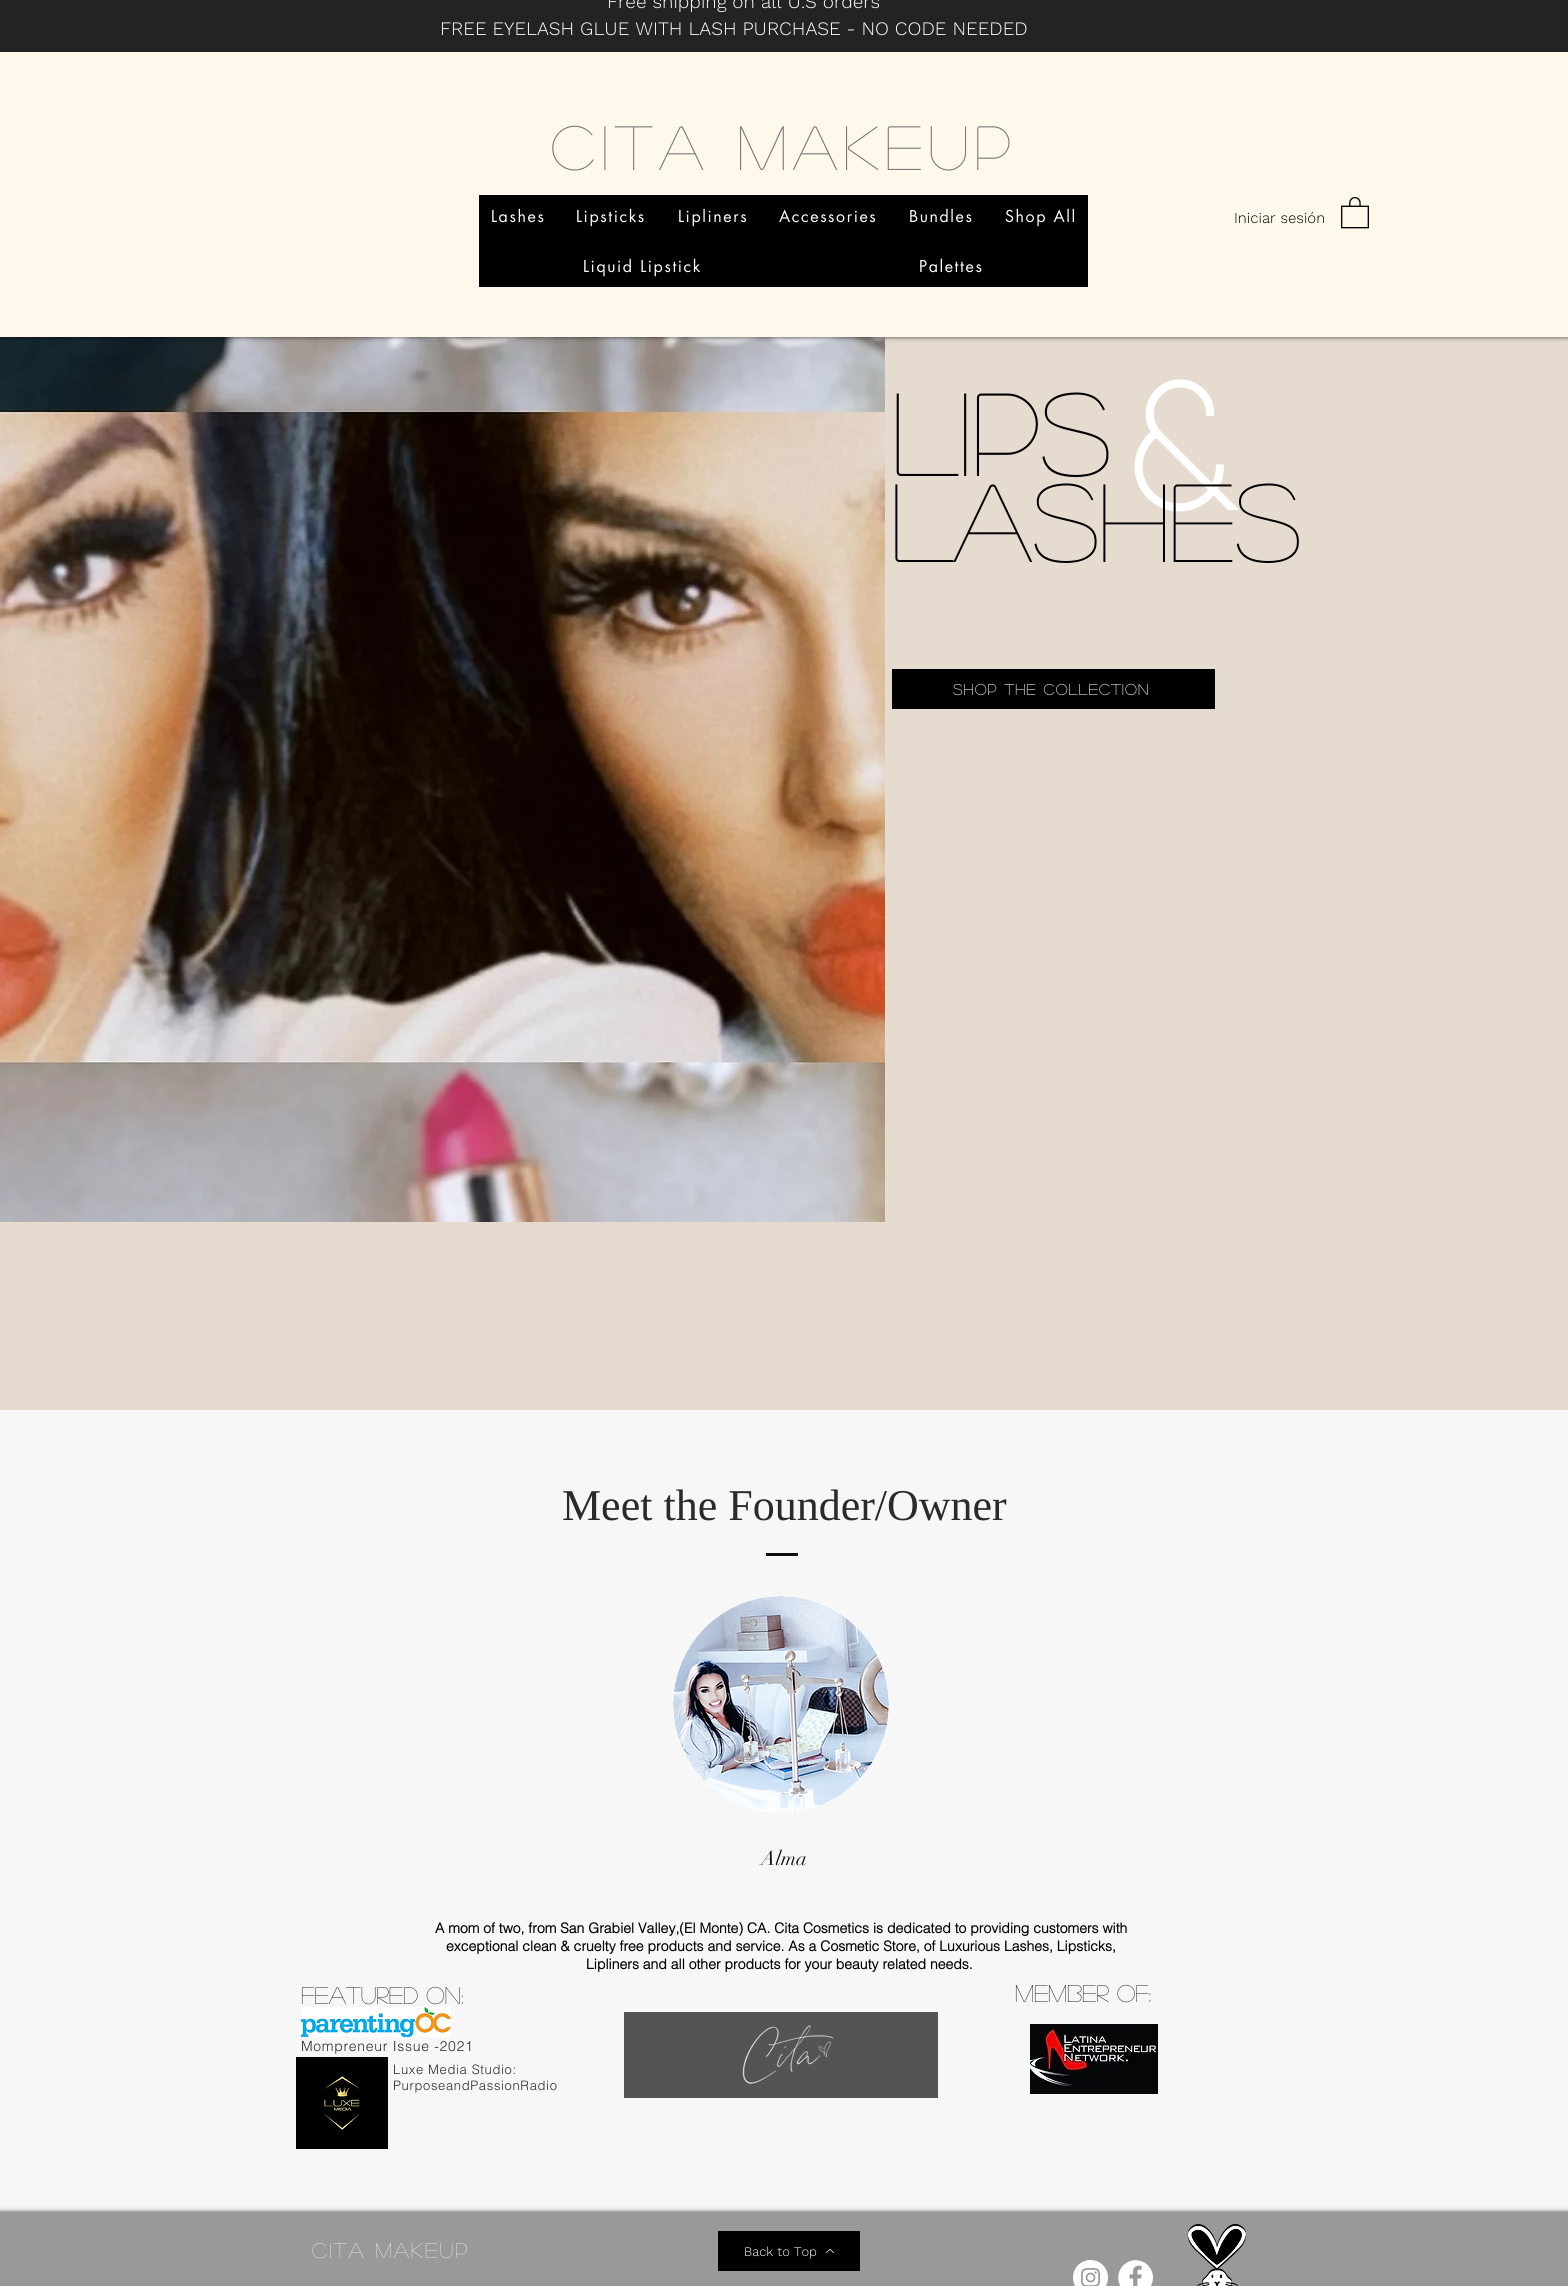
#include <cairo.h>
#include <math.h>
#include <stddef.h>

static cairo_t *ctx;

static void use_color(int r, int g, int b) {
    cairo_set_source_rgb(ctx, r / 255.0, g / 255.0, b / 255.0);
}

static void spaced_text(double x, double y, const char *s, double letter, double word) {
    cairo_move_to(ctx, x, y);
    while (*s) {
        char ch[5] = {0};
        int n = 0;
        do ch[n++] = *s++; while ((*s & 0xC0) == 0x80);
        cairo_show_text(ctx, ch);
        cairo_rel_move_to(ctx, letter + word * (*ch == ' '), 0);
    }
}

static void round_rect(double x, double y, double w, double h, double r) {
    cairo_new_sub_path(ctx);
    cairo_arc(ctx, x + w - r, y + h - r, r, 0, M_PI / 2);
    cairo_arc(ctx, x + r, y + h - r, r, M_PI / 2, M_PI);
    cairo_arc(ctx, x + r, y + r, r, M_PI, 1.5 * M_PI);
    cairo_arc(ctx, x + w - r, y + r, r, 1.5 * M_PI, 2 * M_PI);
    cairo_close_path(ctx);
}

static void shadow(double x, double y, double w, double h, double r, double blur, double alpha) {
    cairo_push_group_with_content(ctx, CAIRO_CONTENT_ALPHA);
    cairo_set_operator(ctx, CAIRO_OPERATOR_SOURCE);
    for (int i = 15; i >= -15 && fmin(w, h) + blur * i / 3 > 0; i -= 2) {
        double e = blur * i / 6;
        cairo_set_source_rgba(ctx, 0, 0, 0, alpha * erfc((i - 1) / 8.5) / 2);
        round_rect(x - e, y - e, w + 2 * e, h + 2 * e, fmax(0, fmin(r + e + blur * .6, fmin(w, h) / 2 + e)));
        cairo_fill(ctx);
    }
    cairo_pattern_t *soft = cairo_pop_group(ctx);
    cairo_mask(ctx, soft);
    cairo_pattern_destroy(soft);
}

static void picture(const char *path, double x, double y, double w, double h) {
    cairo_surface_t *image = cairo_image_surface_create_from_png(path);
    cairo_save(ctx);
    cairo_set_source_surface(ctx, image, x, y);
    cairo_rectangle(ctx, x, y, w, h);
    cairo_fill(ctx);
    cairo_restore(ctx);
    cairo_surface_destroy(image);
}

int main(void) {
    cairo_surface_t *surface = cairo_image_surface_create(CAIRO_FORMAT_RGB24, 1568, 2286);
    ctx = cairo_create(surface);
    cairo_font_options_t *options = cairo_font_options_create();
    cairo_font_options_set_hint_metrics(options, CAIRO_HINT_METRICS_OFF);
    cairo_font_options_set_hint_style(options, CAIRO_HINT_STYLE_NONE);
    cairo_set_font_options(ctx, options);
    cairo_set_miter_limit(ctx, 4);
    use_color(230, 219, 207);
    cairo_paint(ctx);
    picture("img2.png", 0, 337, 885, 885);
    use_color(0, 0, 0);
    shadow(0, -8, 1568, 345, 0, 2.5, 0.7);
    use_color(255, 248, 235);
    cairo_rectangle(ctx, 0, 52, 1568, 285);
    cairo_fill(ctx);
    use_color(36, 35, 35);
    cairo_rectangle(ctx, 0, 0, 1568, 52);
    cairo_fill(ctx);
    cairo_select_font_face(ctx, "Work Sans Light", CAIRO_FONT_SLANT_NORMAL, CAIRO_FONT_WEIGHT_NORMAL);
    cairo_set_font_size(ctx, 19);
    use_color(255, 255, 255);
    cairo_move_to(ctx, 607, 8);
    cairo_show_text(ctx, "Free shipping on all U.S orders");
    cairo_move_to(ctx, 440, 35);
    cairo_show_text(ctx, "FREE EYELASH GLUE WITH LASH PURCHASE - NO CODE NEEDED");
    cairo_select_font_face(ctx, "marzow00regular", CAIRO_FONT_SLANT_NORMAL, CAIRO_FONT_WEIGHT_NORMAL);
    cairo_set_font_size(ctx, 62);
    use_color(120, 120, 120);
    spaced_text(551, 170, "Cita Makeup", 6.25, 0);
    use_color(0, 0, 0);
    cairo_rectangle(ctx, 479, 195, 609, 92);
    cairo_fill(ctx);
    cairo_select_font_face(ctx, "futura", CAIRO_FONT_SLANT_NORMAL, CAIRO_FONT_WEIGHT_NORMAL);
    cairo_set_font_size(ctx, 16);
    use_color(255, 255, 255);
    spaced_text(491, 222, "Lashes", 1.6, 0);
    spaced_text(576, 222, "Lipsticks", 1.6, 0);
    spaced_text(678, 222, "Lipliners", 1.6, 0);
    spaced_text(779, 222, "Accessories", 1.6, 0);
    spaced_text(909, 222, "Bundles", 1.6, 0);
    spaced_text(1005, 222, "Shop All", 1.6, 0);
    spaced_text(583, 272, "Liquid Lipstick", 1.6, 0);
    spaced_text(919, 272, "Palettes", 1.6, 0);
    cairo_select_font_face(ctx, "Work Sans Light", CAIRO_FONT_SLANT_NORMAL, CAIRO_FONT_WEIGHT_NORMAL);
    cairo_set_font_size(ctx, 15);
    use_color(0, 0, 0);
    cairo_move_to(ctx, 1234, 223);
    cairo_show_text(ctx, "Iniciar sesión");
    picture("img1.png", 1341, 197, 28, 32);
    cairo_select_font_face(ctx, "marzow00regular", CAIRO_FONT_SLANT_NORMAL, CAIRO_FONT_WEIGHT_NORMAL);
    cairo_set_font_size(ctx, 117);
    cairo_move_to(ctx, 892, 476);
    cairo_show_text(ctx, "Lips");
    cairo_select_font_face(ctx, "marzow00regular", CAIRO_FONT_SLANT_NORMAL, CAIRO_FONT_WEIGHT_BOLD);
    cairo_set_font_size(ctx, 176);
    use_color(255, 255, 255);
    cairo_move_to(ctx, 1131, 510);
    cairo_show_text(ctx, "&");
    use_color(0, 0, 0);
    cairo_rectangle(ctx, 892, 669, 323, 40);
    cairo_fill(ctx);
    cairo_set_font_size(ctx, 15);
    use_color(204, 204, 204);
    spaced_text(953, 695, "Shop the collection", 1.5, 0);
    cairo_select_font_face(ctx, "marzow00regular", CAIRO_FONT_SLANT_NORMAL, CAIRO_FONT_WEIGHT_NORMAL);
    cairo_set_font_size(ctx, 110);
    use_color(0, 0, 0);
    cairo_move_to(ctx, 891, 562);
    cairo_show_text(ctx, "Lashes");
    use_color(247, 247, 247);
    cairo_rectangle(ctx, 0, 1410, 1568, 802);
    cairo_fill(ctx);
    cairo_select_font_face(ctx, "Liberation Serif", CAIRO_FONT_SLANT_NORMAL, CAIRO_FONT_WEIGHT_NORMAL);
    cairo_set_font_size(ctx, 44);
    use_color(42, 42, 42);
    cairo_move_to(ctx, 562, 1520);
    cairo_show_text(ctx, "Meet the Founder/Owner");
    use_color(15, 15, 15);
    cairo_rectangle(ctx, 766, 1553, 32, 3);
    cairo_fill(ctx);
    use_color(255, 255, 255);
    round_rect(673, 1596, 216, 217, 108);
    cairo_fill(ctx);
    picture("img3.png", 673, 1596, 216, 217);
    cairo_select_font_face(ctx, "didot", CAIRO_FONT_SLANT_NORMAL, CAIRO_FONT_WEIGHT_NORMAL);
    cairo_set_font_size(ctx, 20);
    use_color(15, 15, 15);
    cairo_move_to(ctx, 761, 1865);
    cairo_show_text(ctx, "Alma");
    cairo_select_font_face(ctx, "helvetica", CAIRO_FONT_SLANT_NORMAL, CAIRO_FONT_WEIGHT_BOLD);
    cairo_set_font_size(ctx, 14);
    use_color(0, 0, 0);
    cairo_move_to(ctx, 435, 1933);
    cairo_show_text(ctx, "A mom of two, from San Grabiel Valley,(El Monte) CA. Cita Cosmetics is dedicated to providing customers with");
    cairo_move_to(ctx, 446, 1951);
    cairo_show_text(ctx, "exceptional clean & cruelty free products and service. As a Cosmetic Store, of Luxurious Lashes, Lipsticks,");
    cairo_move_to(ctx, 586, 1969);
    cairo_show_text(ctx, "Lipliners and all other products for your beauty related needs.");
    cairo_select_font_face(ctx, "marzow00regular", CAIRO_FONT_SLANT_NORMAL, CAIRO_FONT_WEIGHT_NORMAL);
    cairo_set_font_size(ctx, 24);
    cairo_move_to(ctx, 301, 2004);
    cairo_show_text(ctx, "featured on:");
    picture("img4.png", 301, 2007, 150, 30);
    use_color(84, 84, 84);
    cairo_rectangle(ctx, 624, 2012, 314, 86);
    cairo_fill(ctx);
    picture("img5.png", 742, 2025, 92, 59);
    picture("img6.png", 1030, 2024, 128, 70);
    cairo_select_font_face(ctx, "helvetica Light", CAIRO_FONT_SLANT_NORMAL, CAIRO_FONT_WEIGHT_NORMAL);
    cairo_set_font_size(ctx, 14);
    use_color(42, 42, 42);
    spaced_text(301, 2051, "Mompreneur Issue -2021", 0.7, 0);
    picture("img7.png", 296, 2057, 92, 92);
    cairo_set_font_size(ctx, 13);
    spaced_text(393, 2074, "Luxe Media Studio:", 0.65, 0);
    spaced_text(393, 2090, "PurposeandPassionRadio", 0.65, 0);
    cairo_select_font_face(ctx, "marzow00regular", CAIRO_FONT_SLANT_NORMAL, CAIRO_FONT_WEIGHT_NORMAL);
    cairo_set_font_size(ctx, 24);
    use_color(0, 0, 0);
    cairo_move_to(ctx, 1015, 2002);
    cairo_show_text(ctx, "Member of:");
    use_color(0, 0, 0);
    shadow(0, 2212, 1568, 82, 0, 2.5, 0.7);
    use_color(153, 153, 153);
    cairo_rectangle(ctx, 0, 2212, 1568, 74);
    cairo_fill(ctx);
    cairo_set_font_size(ctx, 21);
    use_color(255, 255, 255);
    spaced_text(312, 2258, "Cita Makeup", 2.1, 0);
    use_color(0, 0, 0);
    cairo_rectangle(ctx, 718, 2231, 142, 40);
    cairo_fill(ctx);
    cairo_select_font_face(ctx, "Work Sans Light", CAIRO_FONT_SLANT_NORMAL, CAIRO_FONT_WEIGHT_NORMAL);
    cairo_set_font_size(ctx, 13);
    use_color(255, 255, 255);
    cairo_move_to(ctx, 744, 2256);
    cairo_show_text(ctx, "Back to Top");
    picture("img8.png", 826, 2249, 8, 5);
    picture("img9.png", 1187, 2224, 60, 62);
    picture("img10.png", 1073, 2260, 35, 26);
    picture("img11.png", 1118, 2260, 35, 26);
    cairo_surface_write_to_png(surface, "result.png");
    cairo_font_options_destroy(options);
    cairo_destroy(ctx);
    cairo_surface_destroy(surface);
    return 0;
}
